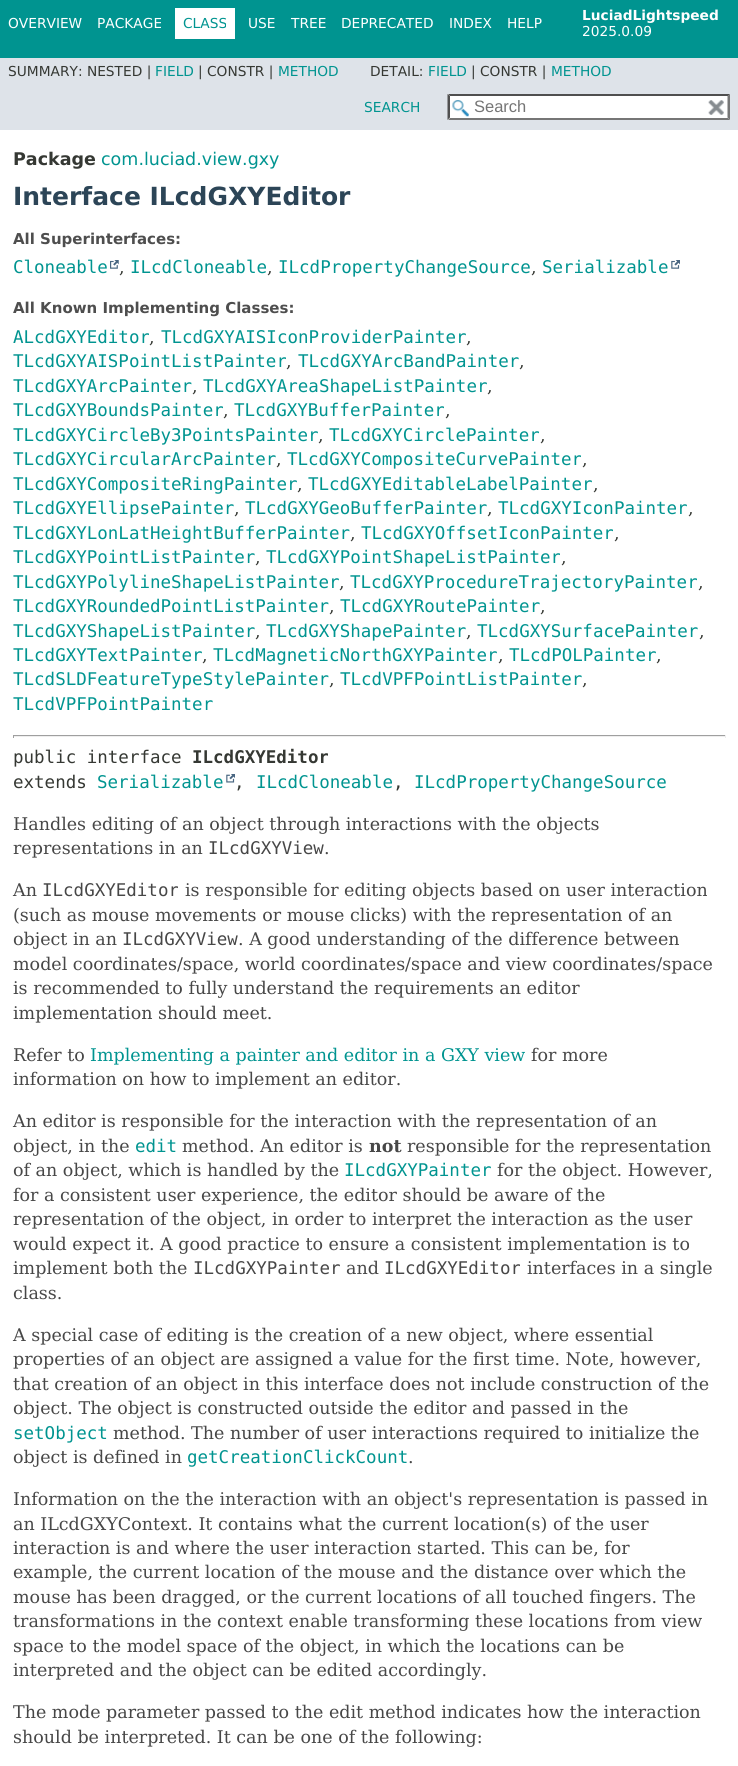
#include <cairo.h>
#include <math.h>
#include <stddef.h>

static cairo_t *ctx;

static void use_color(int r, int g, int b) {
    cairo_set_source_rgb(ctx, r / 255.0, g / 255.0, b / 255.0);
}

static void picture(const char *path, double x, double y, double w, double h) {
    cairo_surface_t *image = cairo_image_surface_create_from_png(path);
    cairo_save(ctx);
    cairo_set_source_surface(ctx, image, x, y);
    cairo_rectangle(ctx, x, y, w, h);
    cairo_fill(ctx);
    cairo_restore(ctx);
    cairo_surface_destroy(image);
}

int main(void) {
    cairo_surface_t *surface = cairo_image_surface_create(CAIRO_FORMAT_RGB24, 738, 1766);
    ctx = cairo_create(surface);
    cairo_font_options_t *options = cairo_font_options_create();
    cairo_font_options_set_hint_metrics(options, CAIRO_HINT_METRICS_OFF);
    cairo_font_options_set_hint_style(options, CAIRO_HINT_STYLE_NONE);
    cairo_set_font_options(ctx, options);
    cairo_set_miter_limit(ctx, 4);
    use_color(255, 255, 255);
    cairo_paint(ctx);
    use_color(0, 148, 144);
    cairo_rectangle(ctx, 0, 0, 738, 58);
    cairo_fill(ctx);
    cairo_select_font_face(ctx, "DejaVu Sans", CAIRO_FONT_SLANT_NORMAL, CAIRO_FONT_WEIGHT_NORMAL);
    cairo_set_font_size(ctx, 13.75);
    use_color(255, 255, 255);
    cairo_move_to(ctx, 8, 28);
    cairo_show_text(ctx, "OVERVIEW");
    cairo_move_to(ctx, 97, 28);
    cairo_show_text(ctx, "PACKAGE");
    cairo_rectangle(ctx, 175, 8, 60, 31);
    cairo_fill(ctx);
    use_color(0, 148, 144);
    cairo_move_to(ctx, 183, 28);
    cairo_show_text(ctx, "CLASS");
    use_color(255, 255, 255);
    cairo_move_to(ctx, 248, 28);
    cairo_show_text(ctx, "USE");
    cairo_move_to(ctx, 291, 28);
    cairo_show_text(ctx, "TREE");
    cairo_move_to(ctx, 341, 28);
    cairo_show_text(ctx, "DEPRECATED");
    cairo_move_to(ctx, 449, 28);
    cairo_show_text(ctx, "INDEX");
    cairo_move_to(ctx, 507, 28);
    cairo_show_text(ctx, "HELP");
    cairo_select_font_face(ctx, "DejaVu Sans", CAIRO_FONT_SLANT_NORMAL, CAIRO_FONT_WEIGHT_BOLD);
    cairo_move_to(ctx, 582, 20);
    cairo_show_text(ctx, "LuciadLightspeed");
    cairo_select_font_face(ctx, "DejaVu Sans", CAIRO_FONT_SLANT_NORMAL, CAIRO_FONT_WEIGHT_NORMAL);
    cairo_move_to(ctx, 582, 36);
    cairo_show_text(ctx, "2025.0.09");
    use_color(222, 227, 233);
    cairo_rectangle(ctx, 0, 58, 738, 72);
    cairo_fill(ctx);
    use_color(53, 56, 51);
    cairo_move_to(ctx, 8, 76);
    cairo_show_text(ctx, "SUMMARY: NESTED |");
    use_color(0, 148, 144);
    cairo_move_to(ctx, 155, 76);
    cairo_show_text(ctx, "FIELD");
    use_color(53, 56, 51);
    cairo_move_to(ctx, 198, 76);
    cairo_show_text(ctx, "| CONSTR |");
    use_color(0, 148, 144);
    cairo_move_to(ctx, 278, 76);
    cairo_show_text(ctx, "METHOD");
    use_color(53, 56, 51);
    cairo_move_to(ctx, 370, 76);
    cairo_show_text(ctx, "DETAIL:");
    use_color(0, 148, 144);
    cairo_move_to(ctx, 428, 76);
    cairo_show_text(ctx, "FIELD");
    use_color(53, 56, 51);
    cairo_move_to(ctx, 471, 76);
    cairo_show_text(ctx, "| CONSTR |");
    use_color(0, 148, 144);
    cairo_move_to(ctx, 551, 76);
    cairo_show_text(ctx, "METHOD");
    cairo_move_to(ctx, 364, 112);
    cairo_show_text(ctx, "SEARCH");
    use_color(255, 255, 255);
    cairo_rectangle(ctx, 448, 94, 282, 26);
    cairo_fill(ctx);
    picture("img1.png", 452, 100, 17, 17);
    use_color(79, 79, 79);
    cairo_new_path(ctx);
    cairo_move_to(ctx, 448, 94);
    cairo_line_to(ctx, 730, 94);
    cairo_line_to(ctx, 728, 96);
    cairo_line_to(ctx, 450, 96);
    cairo_close_path(ctx);
    cairo_fill(ctx);
    use_color(118, 118, 118);
    cairo_new_path(ctx);
    cairo_move_to(ctx, 730, 94);
    cairo_line_to(ctx, 730, 120);
    cairo_line_to(ctx, 727.5, 117.5);
    cairo_line_to(ctx, 727.5, 96);
    cairo_close_path(ctx);
    cairo_fill(ctx);
    cairo_new_path(ctx);
    cairo_move_to(ctx, 730, 120);
    cairo_line_to(ctx, 448, 120);
    cairo_line_to(ctx, 450, 118);
    cairo_line_to(ctx, 728, 118);
    cairo_close_path(ctx);
    cairo_fill(ctx);
    use_color(79, 79, 79);
    cairo_new_path(ctx);
    cairo_move_to(ctx, 447.5, 120);
    cairo_line_to(ctx, 447.5, 94);
    cairo_line_to(ctx, 450, 96);
    cairo_line_to(ctx, 450, 117.5);
    cairo_close_path(ctx);
    cairo_fill(ctx);
    cairo_select_font_face(ctx, "Liberation Sans", CAIRO_FONT_SLANT_NORMAL, CAIRO_FONT_WEIGHT_NORMAL);
    cairo_set_font_size(ctx, 16.5);
    use_color(117, 117, 117);
    cairo_move_to(ctx, 474, 112);
    cairo_show_text(ctx, "Search");
    picture("img2.png", 708, 100, 16, 15);
    cairo_select_font_face(ctx, "DejaVu Sans", CAIRO_FONT_SLANT_NORMAL, CAIRO_FONT_WEIGHT_BOLD);
    cairo_set_font_size(ctx, 17.5);
    use_color(53, 56, 51);
    cairo_move_to(ctx, 13, 165);
    cairo_show_text(ctx, "Package");
    cairo_select_font_face(ctx, "DejaVu Sans", CAIRO_FONT_SLANT_NORMAL, CAIRO_FONT_WEIGHT_NORMAL);
    use_color(0, 148, 144);
    cairo_move_to(ctx, 101, 165);
    cairo_show_text(ctx, "com.luciad.view.gxy");
    cairo_select_font_face(ctx, "DejaVu Sans", CAIRO_FONT_SLANT_NORMAL, CAIRO_FONT_WEIGHT_BOLD);
    cairo_set_font_size(ctx, 25);
    use_color(44, 69, 87);
    cairo_move_to(ctx, 13, 205);
    cairo_show_text(ctx, "Interface ILcdGXYEditor");
    cairo_set_font_size(ctx, 15);
    use_color(78, 78, 78);
    cairo_move_to(ctx, 13, 244);
    cairo_show_text(ctx, "All Superinterfaces:");
    cairo_select_font_face(ctx, "DejaVu Sans Mono", CAIRO_FONT_SLANT_NORMAL, CAIRO_FONT_WEIGHT_NORMAL);
    cairo_set_font_size(ctx, 17.5);
    use_color(0, 148, 144);
    cairo_move_to(ctx, 13, 273);
    cairo_show_text(ctx, "Cloneable");
    picture("img3.png", 110, 260, 9, 9);
    cairo_select_font_face(ctx, "DejaVu Serif", CAIRO_FONT_SLANT_NORMAL, CAIRO_FONT_WEIGHT_NORMAL);
    use_color(53, 56, 51);
    cairo_move_to(ctx, 119, 273);
    cairo_show_text(ctx, ",");
    cairo_select_font_face(ctx, "DejaVu Sans Mono", CAIRO_FONT_SLANT_NORMAL, CAIRO_FONT_WEIGHT_NORMAL);
    use_color(0, 148, 144);
    cairo_move_to(ctx, 130, 273);
    cairo_show_text(ctx, "ILcdCloneable");
    cairo_select_font_face(ctx, "DejaVu Serif", CAIRO_FONT_SLANT_NORMAL, CAIRO_FONT_WEIGHT_NORMAL);
    use_color(53, 56, 51);
    cairo_move_to(ctx, 267, 273);
    cairo_show_text(ctx, ",");
    cairo_select_font_face(ctx, "DejaVu Sans Mono", CAIRO_FONT_SLANT_NORMAL, CAIRO_FONT_WEIGHT_NORMAL);
    use_color(0, 148, 144);
    cairo_move_to(ctx, 278, 273);
    cairo_show_text(ctx, "ILcdPropertyChangeSource");
    cairo_select_font_face(ctx, "DejaVu Serif", CAIRO_FONT_SLANT_NORMAL, CAIRO_FONT_WEIGHT_NORMAL);
    use_color(53, 56, 51);
    cairo_move_to(ctx, 531, 273);
    cairo_show_text(ctx, ",");
    cairo_select_font_face(ctx, "DejaVu Sans Mono", CAIRO_FONT_SLANT_NORMAL, CAIRO_FONT_WEIGHT_NORMAL);
    use_color(0, 148, 144);
    cairo_move_to(ctx, 542, 273);
    cairo_show_text(ctx, "Serializable");
    picture("img4.png", 671, 260, 9, 9);
    cairo_select_font_face(ctx, "DejaVu Sans", CAIRO_FONT_SLANT_NORMAL, CAIRO_FONT_WEIGHT_BOLD);
    cairo_set_font_size(ctx, 15);
    use_color(78, 78, 78);
    cairo_move_to(ctx, 13, 313);
    cairo_show_text(ctx, "All Known Implementing Classes:");
    cairo_select_font_face(ctx, "DejaVu Sans Mono", CAIRO_FONT_SLANT_NORMAL, CAIRO_FONT_WEIGHT_NORMAL);
    cairo_set_font_size(ctx, 17.5);
    use_color(0, 148, 144);
    cairo_move_to(ctx, 13, 343);
    cairo_show_text(ctx, "ALcdGXYEditor");
    cairo_select_font_face(ctx, "DejaVu Serif", CAIRO_FONT_SLANT_NORMAL, CAIRO_FONT_WEIGHT_NORMAL);
    use_color(53, 56, 51);
    cairo_move_to(ctx, 149, 343);
    cairo_show_text(ctx, ",");
    cairo_select_font_face(ctx, "DejaVu Sans Mono", CAIRO_FONT_SLANT_NORMAL, CAIRO_FONT_WEIGHT_NORMAL);
    use_color(0, 148, 144);
    cairo_move_to(ctx, 161, 343);
    cairo_show_text(ctx, "TLcdGXYAISIconProviderPainter");
    cairo_select_font_face(ctx, "DejaVu Serif", CAIRO_FONT_SLANT_NORMAL, CAIRO_FONT_WEIGHT_NORMAL);
    use_color(53, 56, 51);
    cairo_move_to(ctx, 466, 343);
    cairo_show_text(ctx, ",");
    cairo_select_font_face(ctx, "DejaVu Sans Mono", CAIRO_FONT_SLANT_NORMAL, CAIRO_FONT_WEIGHT_NORMAL);
    use_color(0, 148, 144);
    cairo_move_to(ctx, 13, 367);
    cairo_show_text(ctx, "TLcdGXYAISPointListPainter");
    cairo_select_font_face(ctx, "DejaVu Serif", CAIRO_FONT_SLANT_NORMAL, CAIRO_FONT_WEIGHT_NORMAL);
    use_color(53, 56, 51);
    cairo_move_to(ctx, 286, 367);
    cairo_show_text(ctx, ",");
    cairo_select_font_face(ctx, "DejaVu Sans Mono", CAIRO_FONT_SLANT_NORMAL, CAIRO_FONT_WEIGHT_NORMAL);
    use_color(0, 148, 144);
    cairo_move_to(ctx, 298, 367);
    cairo_show_text(ctx, "TLcdGXYArcBandPainter");
    cairo_select_font_face(ctx, "DejaVu Serif", CAIRO_FONT_SLANT_NORMAL, CAIRO_FONT_WEIGHT_NORMAL);
    use_color(53, 56, 51);
    cairo_move_to(ctx, 519, 367);
    cairo_show_text(ctx, ",");
    cairo_select_font_face(ctx, "DejaVu Sans Mono", CAIRO_FONT_SLANT_NORMAL, CAIRO_FONT_WEIGHT_NORMAL);
    use_color(0, 148, 144);
    cairo_move_to(ctx, 13, 392);
    cairo_show_text(ctx, "TLcdGXYArcPainter");
    cairo_select_font_face(ctx, "DejaVu Serif", CAIRO_FONT_SLANT_NORMAL, CAIRO_FONT_WEIGHT_NORMAL);
    use_color(53, 56, 51);
    cairo_move_to(ctx, 192, 392);
    cairo_show_text(ctx, ",");
    cairo_select_font_face(ctx, "DejaVu Sans Mono", CAIRO_FONT_SLANT_NORMAL, CAIRO_FONT_WEIGHT_NORMAL);
    use_color(0, 148, 144);
    cairo_move_to(ctx, 203, 392);
    cairo_show_text(ctx, "TLcdGXYAreaShapeListPainter");
    cairo_select_font_face(ctx, "DejaVu Serif", CAIRO_FONT_SLANT_NORMAL, CAIRO_FONT_WEIGHT_NORMAL);
    use_color(53, 56, 51);
    cairo_move_to(ctx, 487, 392);
    cairo_show_text(ctx, ",");
    cairo_select_font_face(ctx, "DejaVu Sans Mono", CAIRO_FONT_SLANT_NORMAL, CAIRO_FONT_WEIGHT_NORMAL);
    use_color(0, 148, 144);
    cairo_move_to(ctx, 13, 416);
    cairo_show_text(ctx, "TLcdGXYBoundsPainter");
    cairo_select_font_face(ctx, "DejaVu Serif", CAIRO_FONT_SLANT_NORMAL, CAIRO_FONT_WEIGHT_NORMAL);
    use_color(53, 56, 51);
    cairo_move_to(ctx, 223, 416);
    cairo_show_text(ctx, ",");
    cairo_select_font_face(ctx, "DejaVu Sans Mono", CAIRO_FONT_SLANT_NORMAL, CAIRO_FONT_WEIGHT_NORMAL);
    use_color(0, 148, 144);
    cairo_move_to(ctx, 234, 416);
    cairo_show_text(ctx, "TLcdGXYBufferPainter");
    cairo_select_font_face(ctx, "DejaVu Serif", CAIRO_FONT_SLANT_NORMAL, CAIRO_FONT_WEIGHT_NORMAL);
    use_color(53, 56, 51);
    cairo_move_to(ctx, 445, 416);
    cairo_show_text(ctx, ",");
    cairo_select_font_face(ctx, "DejaVu Sans Mono", CAIRO_FONT_SLANT_NORMAL, CAIRO_FONT_WEIGHT_NORMAL);
    use_color(0, 148, 144);
    cairo_move_to(ctx, 13, 441);
    cairo_show_text(ctx, "TLcdGXYCircleBy3PointsPainter");
    cairo_select_font_face(ctx, "DejaVu Serif", CAIRO_FONT_SLANT_NORMAL, CAIRO_FONT_WEIGHT_NORMAL);
    use_color(53, 56, 51);
    cairo_move_to(ctx, 318, 441);
    cairo_show_text(ctx, ",");
    cairo_select_font_face(ctx, "DejaVu Sans Mono", CAIRO_FONT_SLANT_NORMAL, CAIRO_FONT_WEIGHT_NORMAL);
    use_color(0, 148, 144);
    cairo_move_to(ctx, 329, 441);
    cairo_show_text(ctx, "TLcdGXYCirclePainter");
    cairo_select_font_face(ctx, "DejaVu Serif", CAIRO_FONT_SLANT_NORMAL, CAIRO_FONT_WEIGHT_NORMAL);
    use_color(53, 56, 51);
    cairo_move_to(ctx, 540, 441);
    cairo_show_text(ctx, ",");
    cairo_select_font_face(ctx, "DejaVu Sans Mono", CAIRO_FONT_SLANT_NORMAL, CAIRO_FONT_WEIGHT_NORMAL);
    use_color(0, 148, 144);
    cairo_move_to(ctx, 13, 465);
    cairo_show_text(ctx, "TLcdGXYCircularArcPainter");
    cairo_select_font_face(ctx, "DejaVu Serif", CAIRO_FONT_SLANT_NORMAL, CAIRO_FONT_WEIGHT_NORMAL);
    use_color(53, 56, 51);
    cairo_move_to(ctx, 276, 465);
    cairo_show_text(ctx, ",");
    cairo_select_font_face(ctx, "DejaVu Sans Mono", CAIRO_FONT_SLANT_NORMAL, CAIRO_FONT_WEIGHT_NORMAL);
    use_color(0, 148, 144);
    cairo_move_to(ctx, 287, 465);
    cairo_show_text(ctx, "TLcdGXYCompositeCurvePainter");
    cairo_select_font_face(ctx, "DejaVu Serif", CAIRO_FONT_SLANT_NORMAL, CAIRO_FONT_WEIGHT_NORMAL);
    use_color(53, 56, 51);
    cairo_move_to(ctx, 582, 465);
    cairo_show_text(ctx, ",");
    cairo_select_font_face(ctx, "DejaVu Sans Mono", CAIRO_FONT_SLANT_NORMAL, CAIRO_FONT_WEIGHT_NORMAL);
    use_color(0, 148, 144);
    cairo_move_to(ctx, 13, 490);
    cairo_show_text(ctx, "TLcdGXYCompositeRingPainter");
    cairo_select_font_face(ctx, "DejaVu Serif", CAIRO_FONT_SLANT_NORMAL, CAIRO_FONT_WEIGHT_NORMAL);
    use_color(53, 56, 51);
    cairo_move_to(ctx, 297, 490);
    cairo_show_text(ctx, ",");
    cairo_select_font_face(ctx, "DejaVu Sans Mono", CAIRO_FONT_SLANT_NORMAL, CAIRO_FONT_WEIGHT_NORMAL);
    use_color(0, 148, 144);
    cairo_move_to(ctx, 308, 490);
    cairo_show_text(ctx, "TLcdGXYEditableLabelPainter");
    cairo_select_font_face(ctx, "DejaVu Serif", CAIRO_FONT_SLANT_NORMAL, CAIRO_FONT_WEIGHT_NORMAL);
    use_color(53, 56, 51);
    cairo_move_to(ctx, 593, 490);
    cairo_show_text(ctx, ",");
    cairo_select_font_face(ctx, "DejaVu Sans Mono", CAIRO_FONT_SLANT_NORMAL, CAIRO_FONT_WEIGHT_NORMAL);
    use_color(0, 148, 144);
    cairo_move_to(ctx, 13, 514);
    cairo_show_text(ctx, "TLcdGXYEllipsePainter");
    cairo_select_font_face(ctx, "DejaVu Serif", CAIRO_FONT_SLANT_NORMAL, CAIRO_FONT_WEIGHT_NORMAL);
    use_color(53, 56, 51);
    cairo_move_to(ctx, 234, 514);
    cairo_show_text(ctx, ",");
    cairo_select_font_face(ctx, "DejaVu Sans Mono", CAIRO_FONT_SLANT_NORMAL, CAIRO_FONT_WEIGHT_NORMAL);
    use_color(0, 148, 144);
    cairo_move_to(ctx, 245, 514);
    cairo_show_text(ctx, "TLcdGXYGeoBufferPainter");
    cairo_select_font_face(ctx, "DejaVu Serif", CAIRO_FONT_SLANT_NORMAL, CAIRO_FONT_WEIGHT_NORMAL);
    use_color(53, 56, 51);
    cairo_move_to(ctx, 487, 514);
    cairo_show_text(ctx, ",");
    cairo_select_font_face(ctx, "DejaVu Sans Mono", CAIRO_FONT_SLANT_NORMAL, CAIRO_FONT_WEIGHT_NORMAL);
    use_color(0, 148, 144);
    cairo_move_to(ctx, 498, 514);
    cairo_show_text(ctx, "TLcdGXYIconPainter");
    cairo_select_font_face(ctx, "DejaVu Serif", CAIRO_FONT_SLANT_NORMAL, CAIRO_FONT_WEIGHT_NORMAL);
    use_color(53, 56, 51);
    cairo_move_to(ctx, 688, 514);
    cairo_show_text(ctx, ",");
    cairo_select_font_face(ctx, "DejaVu Sans Mono", CAIRO_FONT_SLANT_NORMAL, CAIRO_FONT_WEIGHT_NORMAL);
    use_color(0, 148, 144);
    cairo_move_to(ctx, 13, 539);
    cairo_show_text(ctx, "TLcdGXYLonLatHeightBufferPainter");
    cairo_select_font_face(ctx, "DejaVu Serif", CAIRO_FONT_SLANT_NORMAL, CAIRO_FONT_WEIGHT_NORMAL);
    use_color(53, 56, 51);
    cairo_move_to(ctx, 350, 539);
    cairo_show_text(ctx, ",");
    cairo_select_font_face(ctx, "DejaVu Sans Mono", CAIRO_FONT_SLANT_NORMAL, CAIRO_FONT_WEIGHT_NORMAL);
    use_color(0, 148, 144);
    cairo_move_to(ctx, 361, 539);
    cairo_show_text(ctx, "TLcdGXYOffsetIconPainter");
    cairo_select_font_face(ctx, "DejaVu Serif", CAIRO_FONT_SLANT_NORMAL, CAIRO_FONT_WEIGHT_NORMAL);
    use_color(53, 56, 51);
    cairo_move_to(ctx, 614, 539);
    cairo_show_text(ctx, ",");
    cairo_select_font_face(ctx, "DejaVu Sans Mono", CAIRO_FONT_SLANT_NORMAL, CAIRO_FONT_WEIGHT_NORMAL);
    use_color(0, 148, 144);
    cairo_move_to(ctx, 13, 563);
    cairo_show_text(ctx, "TLcdGXYPointListPainter");
    cairo_select_font_face(ctx, "DejaVu Serif", CAIRO_FONT_SLANT_NORMAL, CAIRO_FONT_WEIGHT_NORMAL);
    use_color(53, 56, 51);
    cairo_move_to(ctx, 255, 563);
    cairo_show_text(ctx, ",");
    cairo_select_font_face(ctx, "DejaVu Sans Mono", CAIRO_FONT_SLANT_NORMAL, CAIRO_FONT_WEIGHT_NORMAL);
    use_color(0, 148, 144);
    cairo_move_to(ctx, 266, 563);
    cairo_show_text(ctx, "TLcdGXYPointShapeListPainter");
    cairo_select_font_face(ctx, "DejaVu Serif", CAIRO_FONT_SLANT_NORMAL, CAIRO_FONT_WEIGHT_NORMAL);
    use_color(53, 56, 51);
    cairo_move_to(ctx, 561, 563);
    cairo_show_text(ctx, ",");
    cairo_select_font_face(ctx, "DejaVu Sans Mono", CAIRO_FONT_SLANT_NORMAL, CAIRO_FONT_WEIGHT_NORMAL);
    use_color(0, 148, 144);
    cairo_move_to(ctx, 13, 588);
    cairo_show_text(ctx, "TLcdGXYPolylineShapeListPainter");
    cairo_select_font_face(ctx, "DejaVu Serif", CAIRO_FONT_SLANT_NORMAL, CAIRO_FONT_WEIGHT_NORMAL);
    use_color(53, 56, 51);
    cairo_move_to(ctx, 339, 588);
    cairo_show_text(ctx, ",");
    cairo_select_font_face(ctx, "DejaVu Sans Mono", CAIRO_FONT_SLANT_NORMAL, CAIRO_FONT_WEIGHT_NORMAL);
    use_color(0, 148, 144);
    cairo_move_to(ctx, 350, 588);
    cairo_show_text(ctx, "TLcdGXYProcedureTrajectoryPainter");
    cairo_select_font_face(ctx, "DejaVu Serif", CAIRO_FONT_SLANT_NORMAL, CAIRO_FONT_WEIGHT_NORMAL);
    use_color(53, 56, 51);
    cairo_move_to(ctx, 698, 588);
    cairo_show_text(ctx, ",");
    cairo_select_font_face(ctx, "DejaVu Sans Mono", CAIRO_FONT_SLANT_NORMAL, CAIRO_FONT_WEIGHT_NORMAL);
    use_color(0, 148, 144);
    cairo_move_to(ctx, 13, 612);
    cairo_show_text(ctx, "TLcdGXYRoundedPointListPainter");
    cairo_select_font_face(ctx, "DejaVu Serif", CAIRO_FONT_SLANT_NORMAL, CAIRO_FONT_WEIGHT_NORMAL);
    use_color(53, 56, 51);
    cairo_move_to(ctx, 329, 612);
    cairo_show_text(ctx, ",");
    cairo_select_font_face(ctx, "DejaVu Sans Mono", CAIRO_FONT_SLANT_NORMAL, CAIRO_FONT_WEIGHT_NORMAL);
    use_color(0, 148, 144);
    cairo_move_to(ctx, 340, 612);
    cairo_show_text(ctx, "TLcdGXYRoutePainter");
    cairo_select_font_face(ctx, "DejaVu Serif", CAIRO_FONT_SLANT_NORMAL, CAIRO_FONT_WEIGHT_NORMAL);
    use_color(53, 56, 51);
    cairo_move_to(ctx, 540, 612);
    cairo_show_text(ctx, ",");
    cairo_select_font_face(ctx, "DejaVu Sans Mono", CAIRO_FONT_SLANT_NORMAL, CAIRO_FONT_WEIGHT_NORMAL);
    use_color(0, 148, 144);
    cairo_move_to(ctx, 13, 637);
    cairo_show_text(ctx, "TLcdGXYShapeListPainter");
    cairo_select_font_face(ctx, "DejaVu Serif", CAIRO_FONT_SLANT_NORMAL, CAIRO_FONT_WEIGHT_NORMAL);
    use_color(53, 56, 51);
    cairo_move_to(ctx, 255, 637);
    cairo_show_text(ctx, ",");
    cairo_select_font_face(ctx, "DejaVu Sans Mono", CAIRO_FONT_SLANT_NORMAL, CAIRO_FONT_WEIGHT_NORMAL);
    use_color(0, 148, 144);
    cairo_move_to(ctx, 266, 637);
    cairo_show_text(ctx, "TLcdGXYShapePainter");
    cairo_select_font_face(ctx, "DejaVu Serif", CAIRO_FONT_SLANT_NORMAL, CAIRO_FONT_WEIGHT_NORMAL);
    use_color(53, 56, 51);
    cairo_move_to(ctx, 466, 637);
    cairo_show_text(ctx, ",");
    cairo_select_font_face(ctx, "DejaVu Sans Mono", CAIRO_FONT_SLANT_NORMAL, CAIRO_FONT_WEIGHT_NORMAL);
    use_color(0, 148, 144);
    cairo_move_to(ctx, 477, 637);
    cairo_show_text(ctx, "TLcdGXYSurfacePainter");
    cairo_select_font_face(ctx, "DejaVu Serif", CAIRO_FONT_SLANT_NORMAL, CAIRO_FONT_WEIGHT_NORMAL);
    use_color(53, 56, 51);
    cairo_move_to(ctx, 699, 637);
    cairo_show_text(ctx, ",");
    cairo_select_font_face(ctx, "DejaVu Sans Mono", CAIRO_FONT_SLANT_NORMAL, CAIRO_FONT_WEIGHT_NORMAL);
    use_color(0, 148, 144);
    cairo_move_to(ctx, 13, 661);
    cairo_show_text(ctx, "TLcdGXYTextPainter");
    cairo_select_font_face(ctx, "DejaVu Serif", CAIRO_FONT_SLANT_NORMAL, CAIRO_FONT_WEIGHT_NORMAL);
    use_color(53, 56, 51);
    cairo_move_to(ctx, 202, 661);
    cairo_show_text(ctx, ",");
    cairo_select_font_face(ctx, "DejaVu Sans Mono", CAIRO_FONT_SLANT_NORMAL, CAIRO_FONT_WEIGHT_NORMAL);
    use_color(0, 148, 144);
    cairo_move_to(ctx, 213, 661);
    cairo_show_text(ctx, "TLcdMagneticNorthGXYPainter");
    cairo_select_font_face(ctx, "DejaVu Serif", CAIRO_FONT_SLANT_NORMAL, CAIRO_FONT_WEIGHT_NORMAL);
    use_color(53, 56, 51);
    cairo_move_to(ctx, 498, 661);
    cairo_show_text(ctx, ",");
    cairo_select_font_face(ctx, "DejaVu Sans Mono", CAIRO_FONT_SLANT_NORMAL, CAIRO_FONT_WEIGHT_NORMAL);
    use_color(0, 148, 144);
    cairo_move_to(ctx, 509, 661);
    cairo_show_text(ctx, "TLcdPOLPainter");
    cairo_select_font_face(ctx, "DejaVu Serif", CAIRO_FONT_SLANT_NORMAL, CAIRO_FONT_WEIGHT_NORMAL);
    use_color(53, 56, 51);
    cairo_move_to(ctx, 656, 661);
    cairo_show_text(ctx, ",");
    cairo_select_font_face(ctx, "DejaVu Sans Mono", CAIRO_FONT_SLANT_NORMAL, CAIRO_FONT_WEIGHT_NORMAL);
    use_color(0, 148, 144);
    cairo_move_to(ctx, 13, 685);
    cairo_show_text(ctx, "TLcdSLDFeatureTypeStylePainter");
    cairo_select_font_face(ctx, "DejaVu Serif", CAIRO_FONT_SLANT_NORMAL, CAIRO_FONT_WEIGHT_NORMAL);
    use_color(53, 56, 51);
    cairo_move_to(ctx, 329, 685);
    cairo_show_text(ctx, ",");
    cairo_select_font_face(ctx, "DejaVu Sans Mono", CAIRO_FONT_SLANT_NORMAL, CAIRO_FONT_WEIGHT_NORMAL);
    use_color(0, 148, 144);
    cairo_move_to(ctx, 340, 685);
    cairo_show_text(ctx, "TLcdVPFPointListPainter");
    cairo_select_font_face(ctx, "DejaVu Serif", CAIRO_FONT_SLANT_NORMAL, CAIRO_FONT_WEIGHT_NORMAL);
    use_color(53, 56, 51);
    cairo_move_to(ctx, 582, 685);
    cairo_show_text(ctx, ",");
    cairo_select_font_face(ctx, "DejaVu Sans Mono", CAIRO_FONT_SLANT_NORMAL, CAIRO_FONT_WEIGHT_NORMAL);
    use_color(0, 148, 144);
    cairo_move_to(ctx, 13, 710);
    cairo_show_text(ctx, "TLcdVPFPointPainter");
    use_color(159, 159, 159);
    cairo_rectangle(ctx, 13, 735, 713, 1);
    cairo_fill(ctx);
    use_color(238, 238, 238);
    cairo_rectangle(ctx, 725, 735, 1, 3);
    cairo_fill(ctx);
    cairo_rectangle(ctx, 13, 736, 713, 1);
    cairo_fill(ctx);
    use_color(159, 159, 159);
    cairo_rectangle(ctx, 13, 735, 1, 3);
    cairo_fill(ctx);
    use_color(53, 56, 51);
    cairo_move_to(ctx, 13, 763);
    cairo_show_text(ctx, "public interface");
    cairo_select_font_face(ctx, "DejaVu Sans Mono", CAIRO_FONT_SLANT_NORMAL, CAIRO_FONT_WEIGHT_BOLD);
    cairo_move_to(ctx, 192, 763);
    cairo_show_text(ctx, "ILcdGXYEditor");
    cairo_select_font_face(ctx, "DejaVu Sans Mono", CAIRO_FONT_SLANT_NORMAL, CAIRO_FONT_WEIGHT_NORMAL);
    cairo_move_to(ctx, 13, 788);
    cairo_show_text(ctx, "extends");
    use_color(0, 148, 144);
    cairo_move_to(ctx, 97, 788);
    cairo_show_text(ctx, "Serializable");
    picture("img5.png", 226, 774, 9, 9);
    use_color(53, 56, 51);
    cairo_move_to(ctx, 234, 788);
    cairo_show_text(ctx, ",");
    use_color(0, 148, 144);
    cairo_move_to(ctx, 256, 788);
    cairo_show_text(ctx, "ILcdCloneable");
    use_color(53, 56, 51);
    cairo_move_to(ctx, 393, 788);
    cairo_show_text(ctx, ",");
    use_color(0, 148, 144);
    cairo_move_to(ctx, 414, 788);
    cairo_show_text(ctx, "ILcdPropertyChangeSource");
    cairo_select_font_face(ctx, "DejaVu Serif", CAIRO_FONT_SLANT_NORMAL, CAIRO_FONT_WEIGHT_NORMAL);
    use_color(71, 71, 71);
    cairo_move_to(ctx, 13, 830);
    cairo_show_text(ctx, "Handles editing of an object through interactions with the objects");
    cairo_move_to(ctx, 13, 854);
    cairo_show_text(ctx, "representations in an");
    cairo_select_font_face(ctx, "DejaVu Sans Mono", CAIRO_FONT_SLANT_NORMAL, CAIRO_FONT_WEIGHT_NORMAL);
    cairo_move_to(ctx, 208, 854);
    cairo_show_text(ctx, "ILcdGXYView");
    cairo_select_font_face(ctx, "DejaVu Serif", CAIRO_FONT_SLANT_NORMAL, CAIRO_FONT_WEIGHT_NORMAL);
    cairo_move_to(ctx, 324, 854);
    cairo_show_text(ctx, ".");
    cairo_move_to(ctx, 13, 896);
    cairo_show_text(ctx, "An");
    cairo_select_font_face(ctx, "DejaVu Sans Mono", CAIRO_FONT_SLANT_NORMAL, CAIRO_FONT_WEIGHT_NORMAL);
    cairo_move_to(ctx, 42, 896);
    cairo_show_text(ctx, "ILcdGXYEditor");
    cairo_select_font_face(ctx, "DejaVu Serif", CAIRO_FONT_SLANT_NORMAL, CAIRO_FONT_WEIGHT_NORMAL);
    cairo_move_to(ctx, 185, 896);
    cairo_show_text(ctx, "is responsible for editing objects based on user interaction");
    cairo_move_to(ctx, 13, 921);
    cairo_show_text(ctx, "(such as mouse movements or mouse clicks) with the representation of an");
    cairo_move_to(ctx, 13, 945);
    cairo_show_text(ctx, "object in an");
    cairo_select_font_face(ctx, "DejaVu Sans Mono", CAIRO_FONT_SLANT_NORMAL, CAIRO_FONT_WEIGHT_NORMAL);
    cairo_move_to(ctx, 122, 945);
    cairo_show_text(ctx, "ILcdGXYView");
    cairo_select_font_face(ctx, "DejaVu Serif", CAIRO_FONT_SLANT_NORMAL, CAIRO_FONT_WEIGHT_NORMAL);
    cairo_move_to(ctx, 238, 945);
    cairo_show_text(ctx, ". A good understanding of the difference between");
    cairo_move_to(ctx, 13, 970);
    cairo_show_text(ctx, "model coordinates/space, world coordinates/space and view coordinates/space");
    cairo_move_to(ctx, 13, 994);
    cairo_show_text(ctx, "is recommended to fully understand the requirements an editor");
    cairo_move_to(ctx, 13, 1019);
    cairo_show_text(ctx, "implementation should meet.");
    cairo_move_to(ctx, 13, 1061);
    cairo_show_text(ctx, "Refer to");
    use_color(0, 148, 144);
    cairo_move_to(ctx, 90, 1061);
    cairo_show_text(ctx, "Implementing a painter and editor in a GXY view");
    use_color(71, 71, 71);
    cairo_move_to(ctx, 531, 1061);
    cairo_show_text(ctx, "for more");
    cairo_move_to(ctx, 13, 1085);
    cairo_show_text(ctx, "information on how to implement an editor.");
    cairo_move_to(ctx, 13, 1127);
    cairo_show_text(ctx, "An editor is responsible for the interaction with the representation of an");
    cairo_move_to(ctx, 13, 1152);
    cairo_show_text(ctx, "object, in the");
    cairo_select_font_face(ctx, "DejaVu Sans Mono", CAIRO_FONT_SLANT_NORMAL, CAIRO_FONT_WEIGHT_NORMAL);
    use_color(0, 148, 144);
    cairo_move_to(ctx, 135, 1152);
    cairo_show_text(ctx, "edit");
    cairo_select_font_face(ctx, "DejaVu Serif", CAIRO_FONT_SLANT_NORMAL, CAIRO_FONT_WEIGHT_NORMAL);
    use_color(71, 71, 71);
    cairo_move_to(ctx, 182, 1152);
    cairo_show_text(ctx, "method. An editor is");
    cairo_select_font_face(ctx, "DejaVu Serif", CAIRO_FONT_SLANT_NORMAL, CAIRO_FONT_WEIGHT_BOLD);
    cairo_move_to(ctx, 369, 1152);
    cairo_show_text(ctx, "not");
    cairo_select_font_face(ctx, "DejaVu Serif", CAIRO_FONT_SLANT_NORMAL, CAIRO_FONT_WEIGHT_NORMAL);
    cairo_move_to(ctx, 407, 1152);
    cairo_show_text(ctx, "responsible for the representation");
    cairo_move_to(ctx, 13, 1176);
    cairo_show_text(ctx, "of an object, which is handled by the");
    cairo_select_font_face(ctx, "DejaVu Sans Mono", CAIRO_FONT_SLANT_NORMAL, CAIRO_FONT_WEIGHT_NORMAL);
    use_color(0, 148, 144);
    cairo_move_to(ctx, 344, 1176);
    cairo_show_text(ctx, "ILcdGXYPainter");
    cairo_select_font_face(ctx, "DejaVu Serif", CAIRO_FONT_SLANT_NORMAL, CAIRO_FONT_WEIGHT_NORMAL);
    use_color(71, 71, 71);
    cairo_move_to(ctx, 497, 1176);
    cairo_show_text(ctx, "for the object. However,");
    cairo_move_to(ctx, 13, 1201);
    cairo_show_text(ctx, "for a consistent user experience, the editor should be aware of the");
    cairo_move_to(ctx, 13, 1225);
    cairo_show_text(ctx, "representation of the object, in order to interpret the interaction as the user");
    cairo_move_to(ctx, 13, 1250);
    cairo_show_text(ctx, "would expect it. A good practice to ensure a consistent implementation is to");
    cairo_move_to(ctx, 13, 1274);
    cairo_show_text(ctx, "implement both the");
    cairo_select_font_face(ctx, "DejaVu Sans Mono", CAIRO_FONT_SLANT_NORMAL, CAIRO_FONT_WEIGHT_NORMAL);
    cairo_move_to(ctx, 193, 1274);
    cairo_show_text(ctx, "ILcdGXYPainter");
    cairo_select_font_face(ctx, "DejaVu Serif", CAIRO_FONT_SLANT_NORMAL, CAIRO_FONT_WEIGHT_NORMAL);
    cairo_move_to(ctx, 346, 1274);
    cairo_show_text(ctx, "and");
    cairo_select_font_face(ctx, "DejaVu Sans Mono", CAIRO_FONT_SLANT_NORMAL, CAIRO_FONT_WEIGHT_NORMAL);
    cairo_move_to(ctx, 384, 1274);
    cairo_show_text(ctx, "ILcdGXYEditor");
    cairo_select_font_face(ctx, "DejaVu Serif", CAIRO_FONT_SLANT_NORMAL, CAIRO_FONT_WEIGHT_NORMAL);
    cairo_move_to(ctx, 527, 1274);
    cairo_show_text(ctx, "interfaces in a single");
    cairo_move_to(ctx, 13, 1299);
    cairo_show_text(ctx, "class.");
    cairo_move_to(ctx, 13, 1341);
    cairo_show_text(ctx, "A special case of editing is the creation of a new object, where essential");
    cairo_move_to(ctx, 13, 1365);
    cairo_show_text(ctx, "properties of an object are assigned a value for the first time. Note, however,");
    cairo_move_to(ctx, 13, 1390);
    cairo_show_text(ctx, "that creation of an object in this interface does not include construction of the");
    cairo_move_to(ctx, 13, 1414);
    cairo_show_text(ctx, "object. The object is constructed outside the editor and passed in the");
    cairo_select_font_face(ctx, "DejaVu Sans Mono", CAIRO_FONT_SLANT_NORMAL, CAIRO_FONT_WEIGHT_NORMAL);
    use_color(0, 148, 144);
    cairo_move_to(ctx, 13, 1439);
    cairo_show_text(ctx, "setObject");
    cairo_select_font_face(ctx, "DejaVu Serif", CAIRO_FONT_SLANT_NORMAL, CAIRO_FONT_WEIGHT_NORMAL);
    use_color(71, 71, 71);
    cairo_move_to(ctx, 113, 1439);
    cairo_show_text(ctx, "method. The number of user interactions required to initialize the");
    cairo_move_to(ctx, 13, 1463);
    cairo_show_text(ctx, "object is defined in");
    cairo_select_font_face(ctx, "DejaVu Sans Mono", CAIRO_FONT_SLANT_NORMAL, CAIRO_FONT_WEIGHT_NORMAL);
    use_color(0, 148, 144);
    cairo_move_to(ctx, 187, 1463);
    cairo_show_text(ctx, "getCreationClickCount");
    cairo_select_font_face(ctx, "DejaVu Serif", CAIRO_FONT_SLANT_NORMAL, CAIRO_FONT_WEIGHT_NORMAL);
    use_color(71, 71, 71);
    cairo_move_to(ctx, 408, 1463);
    cairo_show_text(ctx, ".");
    cairo_move_to(ctx, 13, 1505);
    cairo_show_text(ctx, "Information on the the interaction with an object's representation is passed in");
    cairo_move_to(ctx, 13, 1530);
    cairo_show_text(ctx, "an ILcdGXYContext. It contains what the current location(s) of the user");
    cairo_move_to(ctx, 13, 1554);
    cairo_show_text(ctx, "interaction is and where the user interaction started. This can be, for");
    cairo_move_to(ctx, 13, 1578);
    cairo_show_text(ctx, "example, the current location of the mouse and the distance over which the");
    cairo_move_to(ctx, 13, 1603);
    cairo_show_text(ctx, "mouse has been dragged, or the current locations of all touched fingers. The");
    cairo_move_to(ctx, 13, 1627);
    cairo_show_text(ctx, "transformations in the context enable transforming these locations from view");
    cairo_move_to(ctx, 13, 1652);
    cairo_show_text(ctx, "space to the model space of the object, in which the locations can be");
    cairo_move_to(ctx, 13, 1676);
    cairo_show_text(ctx, "interpreted and the object can be edited accordingly.");
    cairo_move_to(ctx, 13, 1718);
    cairo_show_text(ctx, "The mode parameter passed to the edit method indicates how the interaction");
    cairo_move_to(ctx, 13, 1743);
    cairo_show_text(ctx, "should be interpreted. It can be one of the following:");
    cairo_surface_write_to_png(surface, "result.png");
    cairo_font_options_destroy(options);
    cairo_destroy(ctx);
    cairo_surface_destroy(surface);
    return 0;
}
